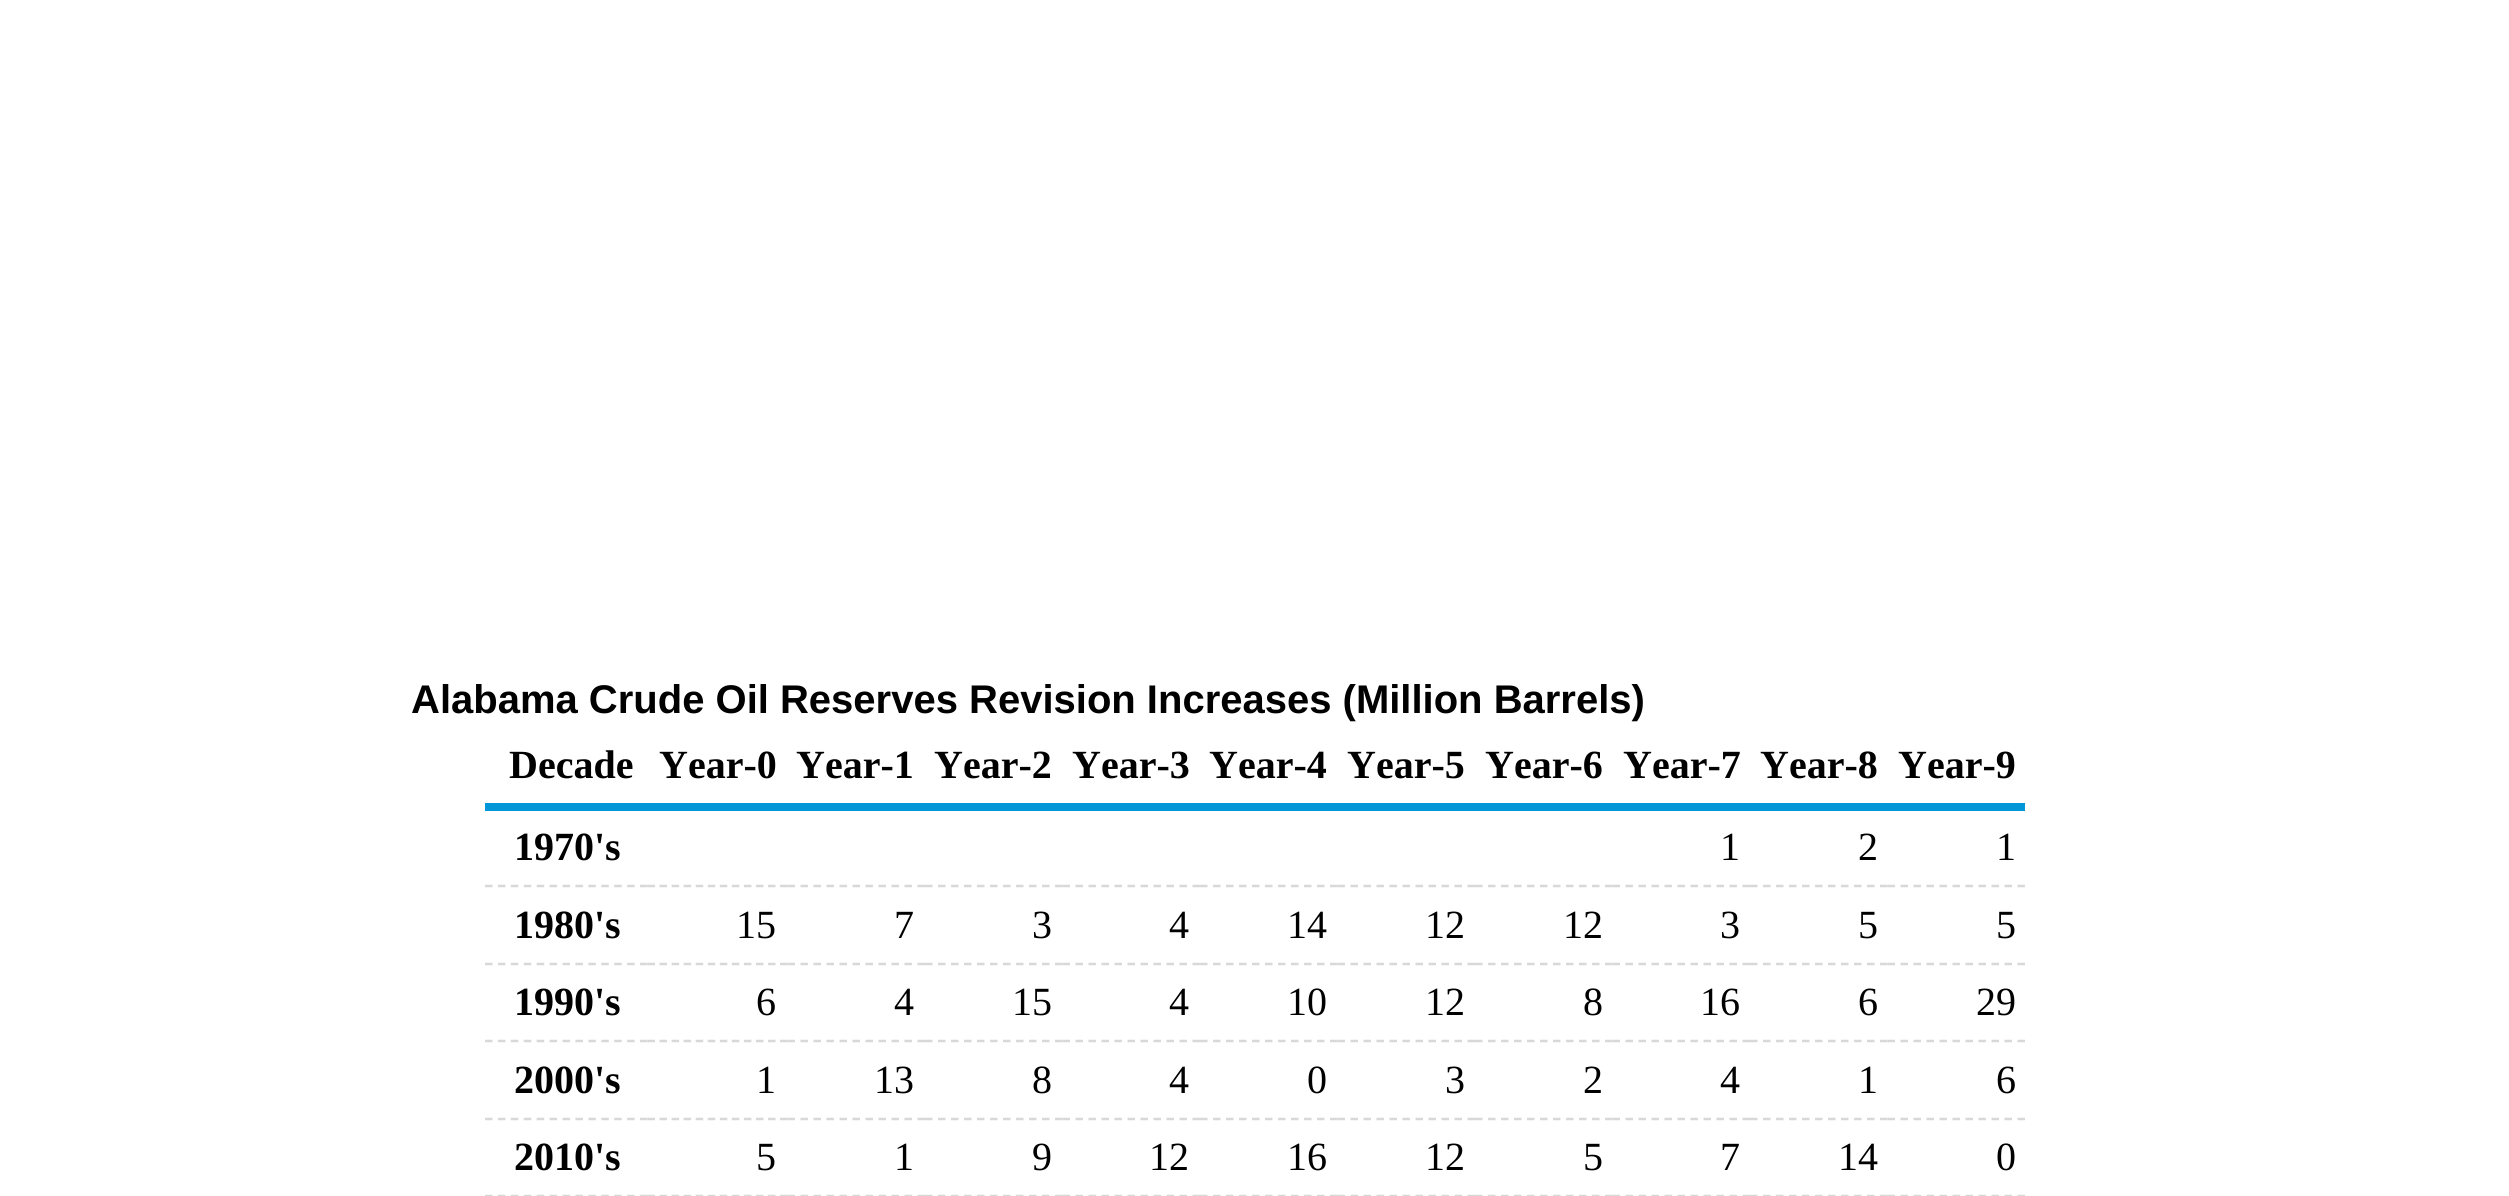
#include <cairo.h>
#include <math.h>
#include <stddef.h>

static cairo_t *ctx;

static void use_color(int r, int g, int b) {
    cairo_set_source_rgb(ctx, r / 255.0, g / 255.0, b / 255.0);
}

int main(void) {
    cairo_surface_t *surface = cairo_image_surface_create(CAIRO_FORMAT_RGB24, 2509, 1196);
    ctx = cairo_create(surface);
    cairo_font_options_t *options = cairo_font_options_create();
    cairo_font_options_set_hint_metrics(options, CAIRO_HINT_METRICS_OFF);
    cairo_font_options_set_hint_style(options, CAIRO_HINT_STYLE_NONE);
    cairo_set_font_options(ctx, options);
    cairo_set_miter_limit(ctx, 4);
    use_color(255, 255, 255);
    cairo_paint(ctx);
    cairo_select_font_face(ctx, "Liberation Sans", CAIRO_FONT_SLANT_NORMAL, CAIRO_FONT_WEIGHT_BOLD);
    cairo_set_font_size(ctx, 40);
    use_color(0, 0, 0);
    cairo_move_to(ctx, 411, 713);
    cairo_show_text(ctx, "Alabama Crude Oil Reserves Revision Increases (Million Barrels)");
    use_color(0, 150, 215);
    cairo_rectangle(ctx, 485, 803, 1540, 8);
    cairo_fill(ctx);
    cairo_select_font_face(ctx, "Liberation Serif", CAIRO_FONT_SLANT_NORMAL, CAIRO_FONT_WEIGHT_BOLD);
    use_color(0, 0, 0);
    cairo_move_to(ctx, 509, 778);
    cairo_show_text(ctx, "Decade");
    cairo_move_to(ctx, 659, 778);
    cairo_show_text(ctx, "Year-0");
    cairo_move_to(ctx, 796, 778);
    cairo_show_text(ctx, "Year-1");
    cairo_move_to(ctx, 934, 778);
    cairo_show_text(ctx, "Year-2");
    cairo_move_to(ctx, 1072, 778);
    cairo_show_text(ctx, "Year-3");
    cairo_move_to(ctx, 1209, 778);
    cairo_show_text(ctx, "Year-4");
    cairo_move_to(ctx, 1347, 778);
    cairo_show_text(ctx, "Year-5");
    cairo_move_to(ctx, 1485, 778);
    cairo_show_text(ctx, "Year-6");
    cairo_move_to(ctx, 1623, 778);
    cairo_show_text(ctx, "Year-7");
    cairo_move_to(ctx, 1760, 778);
    cairo_show_text(ctx, "Year-8");
    cairo_move_to(ctx, 1898, 778);
    cairo_show_text(ctx, "Year-9");
    cairo_new_path(ctx);
    cairo_move_to(ctx, 485, 886);
    cairo_line_to(ctx, 647.5, 886);
    use_color(216, 216, 216);
    cairo_set_line_width(ctx, 2.5);
    cairo_set_dash(ctx, (double[]){7.5, 5.42}, 2, 0);
    cairo_stroke(ctx);
    use_color(0, 0, 0);
    cairo_move_to(ctx, 514, 860);
    cairo_show_text(ctx, "1970's");
    cairo_new_path(ctx);
    cairo_move_to(ctx, 1475, 886);
    cairo_line_to(ctx, 1612.5, 886);
    use_color(216, 216, 216);
    cairo_set_dash(ctx, (double[]){7.5, 5.5}, 2, 0);
    cairo_stroke(ctx);
    cairo_new_path(ctx);
    cairo_move_to(ctx, 1612.5, 886);
    cairo_line_to(ctx, 1750, 886);
    cairo_stroke(ctx);
    cairo_select_font_face(ctx, "Liberation Serif", CAIRO_FONT_SLANT_NORMAL, CAIRO_FONT_WEIGHT_NORMAL);
    use_color(0, 0, 0);
    cairo_move_to(ctx, 1720, 860);
    cairo_show_text(ctx, "1");
    cairo_new_path(ctx);
    cairo_move_to(ctx, 1750, 886);
    cairo_line_to(ctx, 1887.5, 886);
    use_color(216, 216, 216);
    cairo_stroke(ctx);
    use_color(0, 0, 0);
    cairo_move_to(ctx, 1858, 860);
    cairo_show_text(ctx, "2");
    cairo_new_path(ctx);
    cairo_move_to(ctx, 1887.5, 886);
    cairo_line_to(ctx, 2025, 886);
    use_color(216, 216, 216);
    cairo_stroke(ctx);
    use_color(0, 0, 0);
    cairo_move_to(ctx, 1996, 860);
    cairo_show_text(ctx, "1");
    cairo_new_path(ctx);
    cairo_move_to(ctx, 647.5, 886);
    cairo_line_to(ctx, 787.5, 886);
    use_color(216, 216, 216);
    cairo_set_dash(ctx, (double[]){7.5, 4.55}, 2, 0);
    cairo_stroke(ctx);
    cairo_new_path(ctx);
    cairo_move_to(ctx, 787.5, 886);
    cairo_line_to(ctx, 925, 886);
    cairo_set_dash(ctx, (double[]){7.5, 5.5}, 2, 0);
    cairo_stroke(ctx);
    cairo_new_path(ctx);
    cairo_move_to(ctx, 925, 886);
    cairo_line_to(ctx, 1062.5, 886);
    cairo_stroke(ctx);
    cairo_new_path(ctx);
    cairo_move_to(ctx, 1062.5, 886);
    cairo_line_to(ctx, 1200, 886);
    cairo_stroke(ctx);
    cairo_new_path(ctx);
    cairo_move_to(ctx, 1200, 886);
    cairo_line_to(ctx, 1337.5, 886);
    cairo_stroke(ctx);
    cairo_new_path(ctx);
    cairo_move_to(ctx, 1337.5, 886);
    cairo_line_to(ctx, 1475, 886);
    cairo_stroke(ctx);
    cairo_new_path(ctx);
    cairo_move_to(ctx, 485, 964);
    cairo_line_to(ctx, 647.5, 964);
    cairo_set_dash(ctx, (double[]){7.5, 5.42}, 2, 0);
    cairo_stroke(ctx);
    cairo_select_font_face(ctx, "Liberation Serif", CAIRO_FONT_SLANT_NORMAL, CAIRO_FONT_WEIGHT_BOLD);
    use_color(0, 0, 0);
    cairo_move_to(ctx, 514, 938);
    cairo_show_text(ctx, "1980's");
    cairo_new_path(ctx);
    cairo_move_to(ctx, 647.5, 964);
    cairo_line_to(ctx, 787.5, 964);
    use_color(216, 216, 216);
    cairo_set_dash(ctx, (double[]){7.5, 4.55}, 2, 0);
    cairo_stroke(ctx);
    cairo_select_font_face(ctx, "Liberation Serif", CAIRO_FONT_SLANT_NORMAL, CAIRO_FONT_WEIGHT_NORMAL);
    use_color(0, 0, 0);
    cairo_move_to(ctx, 736, 938);
    cairo_show_text(ctx, "15");
    cairo_new_path(ctx);
    cairo_move_to(ctx, 787.5, 964);
    cairo_line_to(ctx, 925, 964);
    use_color(216, 216, 216);
    cairo_set_dash(ctx, (double[]){7.5, 5.5}, 2, 0);
    cairo_stroke(ctx);
    use_color(0, 0, 0);
    cairo_move_to(ctx, 894, 938);
    cairo_show_text(ctx, "7");
    cairo_new_path(ctx);
    cairo_move_to(ctx, 925, 964);
    cairo_line_to(ctx, 1062.5, 964);
    use_color(216, 216, 216);
    cairo_stroke(ctx);
    use_color(0, 0, 0);
    cairo_move_to(ctx, 1032, 938);
    cairo_show_text(ctx, "3");
    cairo_new_path(ctx);
    cairo_move_to(ctx, 1062.5, 964);
    cairo_line_to(ctx, 1200, 964);
    use_color(216, 216, 216);
    cairo_stroke(ctx);
    use_color(0, 0, 0);
    cairo_move_to(ctx, 1169, 938);
    cairo_show_text(ctx, "4");
    cairo_new_path(ctx);
    cairo_move_to(ctx, 1200, 964);
    cairo_line_to(ctx, 1337.5, 964);
    use_color(216, 216, 216);
    cairo_stroke(ctx);
    use_color(0, 0, 0);
    cairo_move_to(ctx, 1287, 938);
    cairo_show_text(ctx, "14");
    cairo_new_path(ctx);
    cairo_move_to(ctx, 1337.5, 964);
    cairo_line_to(ctx, 1475, 964);
    use_color(216, 216, 216);
    cairo_stroke(ctx);
    use_color(0, 0, 0);
    cairo_move_to(ctx, 1425, 938);
    cairo_show_text(ctx, "12");
    cairo_new_path(ctx);
    cairo_move_to(ctx, 1475, 964);
    cairo_line_to(ctx, 1612.5, 964);
    use_color(216, 216, 216);
    cairo_stroke(ctx);
    use_color(0, 0, 0);
    cairo_move_to(ctx, 1563, 938);
    cairo_show_text(ctx, "12");
    cairo_new_path(ctx);
    cairo_move_to(ctx, 1612.5, 964);
    cairo_line_to(ctx, 1750, 964);
    use_color(216, 216, 216);
    cairo_stroke(ctx);
    use_color(0, 0, 0);
    cairo_move_to(ctx, 1720, 938);
    cairo_show_text(ctx, "3");
    cairo_new_path(ctx);
    cairo_move_to(ctx, 1750, 964);
    cairo_line_to(ctx, 1887.5, 964);
    use_color(216, 216, 216);
    cairo_stroke(ctx);
    use_color(0, 0, 0);
    cairo_move_to(ctx, 1858, 938);
    cairo_show_text(ctx, "5");
    cairo_new_path(ctx);
    cairo_move_to(ctx, 1887.5, 964);
    cairo_line_to(ctx, 2025, 964);
    use_color(216, 216, 216);
    cairo_stroke(ctx);
    use_color(0, 0, 0);
    cairo_move_to(ctx, 1996, 938);
    cairo_show_text(ctx, "5");
    cairo_new_path(ctx);
    cairo_move_to(ctx, 485, 1041);
    cairo_line_to(ctx, 647.5, 1041);
    use_color(216, 216, 216);
    cairo_set_dash(ctx, (double[]){7.5, 5.42}, 2, 0);
    cairo_stroke(ctx);
    cairo_select_font_face(ctx, "Liberation Serif", CAIRO_FONT_SLANT_NORMAL, CAIRO_FONT_WEIGHT_BOLD);
    use_color(0, 0, 0);
    cairo_move_to(ctx, 514, 1015);
    cairo_show_text(ctx, "1990's");
    cairo_new_path(ctx);
    cairo_move_to(ctx, 647.5, 1041);
    cairo_line_to(ctx, 787.5, 1041);
    use_color(216, 216, 216);
    cairo_set_dash(ctx, (double[]){7.5, 4.55}, 2, 0);
    cairo_stroke(ctx);
    cairo_select_font_face(ctx, "Liberation Serif", CAIRO_FONT_SLANT_NORMAL, CAIRO_FONT_WEIGHT_NORMAL);
    use_color(0, 0, 0);
    cairo_move_to(ctx, 756, 1015);
    cairo_show_text(ctx, "6");
    cairo_new_path(ctx);
    cairo_move_to(ctx, 787.5, 1041);
    cairo_line_to(ctx, 925, 1041);
    use_color(216, 216, 216);
    cairo_set_dash(ctx, (double[]){7.5, 5.5}, 2, 0);
    cairo_stroke(ctx);
    use_color(0, 0, 0);
    cairo_move_to(ctx, 894, 1015);
    cairo_show_text(ctx, "4");
    cairo_new_path(ctx);
    cairo_move_to(ctx, 925, 1041);
    cairo_line_to(ctx, 1062.5, 1041);
    use_color(216, 216, 216);
    cairo_stroke(ctx);
    use_color(0, 0, 0);
    cairo_move_to(ctx, 1012, 1015);
    cairo_show_text(ctx, "15");
    cairo_new_path(ctx);
    cairo_move_to(ctx, 1062.5, 1041);
    cairo_line_to(ctx, 1200, 1041);
    use_color(216, 216, 216);
    cairo_stroke(ctx);
    use_color(0, 0, 0);
    cairo_move_to(ctx, 1169, 1015);
    cairo_show_text(ctx, "4");
    cairo_new_path(ctx);
    cairo_move_to(ctx, 1200, 1041);
    cairo_line_to(ctx, 1337.5, 1041);
    use_color(216, 216, 216);
    cairo_stroke(ctx);
    use_color(0, 0, 0);
    cairo_move_to(ctx, 1287, 1015);
    cairo_show_text(ctx, "10");
    cairo_new_path(ctx);
    cairo_move_to(ctx, 1337.5, 1041);
    cairo_line_to(ctx, 1475, 1041);
    use_color(216, 216, 216);
    cairo_stroke(ctx);
    use_color(0, 0, 0);
    cairo_move_to(ctx, 1425, 1015);
    cairo_show_text(ctx, "12");
    cairo_new_path(ctx);
    cairo_move_to(ctx, 1475, 1041);
    cairo_line_to(ctx, 1612.5, 1041);
    use_color(216, 216, 216);
    cairo_stroke(ctx);
    use_color(0, 0, 0);
    cairo_move_to(ctx, 1583, 1015);
    cairo_show_text(ctx, "8");
    cairo_new_path(ctx);
    cairo_move_to(ctx, 1612.5, 1041);
    cairo_line_to(ctx, 1750, 1041);
    use_color(216, 216, 216);
    cairo_stroke(ctx);
    use_color(0, 0, 0);
    cairo_move_to(ctx, 1700, 1015);
    cairo_show_text(ctx, "16");
    cairo_new_path(ctx);
    cairo_move_to(ctx, 1750, 1041);
    cairo_line_to(ctx, 1887.5, 1041);
    use_color(216, 216, 216);
    cairo_stroke(ctx);
    use_color(0, 0, 0);
    cairo_move_to(ctx, 1858, 1015);
    cairo_show_text(ctx, "6");
    cairo_new_path(ctx);
    cairo_move_to(ctx, 1887.5, 1041);
    cairo_line_to(ctx, 2025, 1041);
    use_color(216, 216, 216);
    cairo_stroke(ctx);
    use_color(0, 0, 0);
    cairo_move_to(ctx, 1976, 1015);
    cairo_show_text(ctx, "29");
    cairo_new_path(ctx);
    cairo_move_to(ctx, 485, 1119);
    cairo_line_to(ctx, 647.5, 1119);
    use_color(216, 216, 216);
    cairo_set_dash(ctx, (double[]){7.5, 5.42}, 2, 0);
    cairo_stroke(ctx);
    cairo_select_font_face(ctx, "Liberation Serif", CAIRO_FONT_SLANT_NORMAL, CAIRO_FONT_WEIGHT_BOLD);
    use_color(0, 0, 0);
    cairo_move_to(ctx, 514, 1093);
    cairo_show_text(ctx, "2000's");
    cairo_new_path(ctx);
    cairo_move_to(ctx, 647.5, 1119);
    cairo_line_to(ctx, 787.5, 1119);
    use_color(216, 216, 216);
    cairo_set_dash(ctx, (double[]){7.5, 4.55}, 2, 0);
    cairo_stroke(ctx);
    cairo_select_font_face(ctx, "Liberation Serif", CAIRO_FONT_SLANT_NORMAL, CAIRO_FONT_WEIGHT_NORMAL);
    use_color(0, 0, 0);
    cairo_move_to(ctx, 756, 1093);
    cairo_show_text(ctx, "1");
    cairo_new_path(ctx);
    cairo_move_to(ctx, 787.5, 1119);
    cairo_line_to(ctx, 925, 1119);
    use_color(216, 216, 216);
    cairo_set_dash(ctx, (double[]){7.5, 5.5}, 2, 0);
    cairo_stroke(ctx);
    use_color(0, 0, 0);
    cairo_move_to(ctx, 874, 1093);
    cairo_show_text(ctx, "13");
    cairo_new_path(ctx);
    cairo_move_to(ctx, 925, 1119);
    cairo_line_to(ctx, 1062.5, 1119);
    use_color(216, 216, 216);
    cairo_stroke(ctx);
    use_color(0, 0, 0);
    cairo_move_to(ctx, 1032, 1093);
    cairo_show_text(ctx, "8");
    cairo_new_path(ctx);
    cairo_move_to(ctx, 1062.5, 1119);
    cairo_line_to(ctx, 1200, 1119);
    use_color(216, 216, 216);
    cairo_stroke(ctx);
    use_color(0, 0, 0);
    cairo_move_to(ctx, 1169, 1093);
    cairo_show_text(ctx, "4");
    cairo_new_path(ctx);
    cairo_move_to(ctx, 1200, 1119);
    cairo_line_to(ctx, 1337.5, 1119);
    use_color(216, 216, 216);
    cairo_stroke(ctx);
    use_color(0, 0, 0);
    cairo_move_to(ctx, 1307, 1093);
    cairo_show_text(ctx, "0");
    cairo_new_path(ctx);
    cairo_move_to(ctx, 1337.5, 1119);
    cairo_line_to(ctx, 1475, 1119);
    use_color(216, 216, 216);
    cairo_stroke(ctx);
    use_color(0, 0, 0);
    cairo_move_to(ctx, 1445, 1093);
    cairo_show_text(ctx, "3");
    cairo_new_path(ctx);
    cairo_move_to(ctx, 1475, 1119);
    cairo_line_to(ctx, 1612.5, 1119);
    use_color(216, 216, 216);
    cairo_stroke(ctx);
    use_color(0, 0, 0);
    cairo_move_to(ctx, 1583, 1093);
    cairo_show_text(ctx, "2");
    cairo_new_path(ctx);
    cairo_move_to(ctx, 1612.5, 1119);
    cairo_line_to(ctx, 1750, 1119);
    use_color(216, 216, 216);
    cairo_stroke(ctx);
    use_color(0, 0, 0);
    cairo_move_to(ctx, 1720, 1093);
    cairo_show_text(ctx, "4");
    cairo_new_path(ctx);
    cairo_move_to(ctx, 1750, 1119);
    cairo_line_to(ctx, 1887.5, 1119);
    use_color(216, 216, 216);
    cairo_stroke(ctx);
    use_color(0, 0, 0);
    cairo_move_to(ctx, 1858, 1093);
    cairo_show_text(ctx, "1");
    cairo_new_path(ctx);
    cairo_move_to(ctx, 1887.5, 1119);
    cairo_line_to(ctx, 2025, 1119);
    use_color(216, 216, 216);
    cairo_stroke(ctx);
    use_color(0, 0, 0);
    cairo_move_to(ctx, 1996, 1093);
    cairo_show_text(ctx, "6");
    cairo_new_path(ctx);
    cairo_move_to(ctx, 485, 1196);
    cairo_line_to(ctx, 647.5, 1196);
    use_color(216, 216, 216);
    cairo_set_dash(ctx, (double[]){7.5, 5.42}, 2, 0);
    cairo_stroke(ctx);
    cairo_select_font_face(ctx, "Liberation Serif", CAIRO_FONT_SLANT_NORMAL, CAIRO_FONT_WEIGHT_BOLD);
    use_color(0, 0, 0);
    cairo_move_to(ctx, 514, 1170);
    cairo_show_text(ctx, "2010's");
    cairo_new_path(ctx);
    cairo_move_to(ctx, 647.5, 1196);
    cairo_line_to(ctx, 787.5, 1196);
    use_color(216, 216, 216);
    cairo_set_dash(ctx, (double[]){7.5, 4.55}, 2, 0);
    cairo_stroke(ctx);
    cairo_select_font_face(ctx, "Liberation Serif", CAIRO_FONT_SLANT_NORMAL, CAIRO_FONT_WEIGHT_NORMAL);
    use_color(0, 0, 0);
    cairo_move_to(ctx, 756, 1170);
    cairo_show_text(ctx, "5");
    cairo_new_path(ctx);
    cairo_move_to(ctx, 787.5, 1196);
    cairo_line_to(ctx, 925, 1196);
    use_color(216, 216, 216);
    cairo_set_dash(ctx, (double[]){7.5, 5.5}, 2, 0);
    cairo_stroke(ctx);
    use_color(0, 0, 0);
    cairo_move_to(ctx, 894, 1170);
    cairo_show_text(ctx, "1");
    cairo_new_path(ctx);
    cairo_move_to(ctx, 925, 1196);
    cairo_line_to(ctx, 1062.5, 1196);
    use_color(216, 216, 216);
    cairo_stroke(ctx);
    use_color(0, 0, 0);
    cairo_move_to(ctx, 1032, 1170);
    cairo_show_text(ctx, "9");
    cairo_new_path(ctx);
    cairo_move_to(ctx, 1062.5, 1196);
    cairo_line_to(ctx, 1200, 1196);
    use_color(216, 216, 216);
    cairo_stroke(ctx);
    use_color(0, 0, 0);
    cairo_move_to(ctx, 1149, 1170);
    cairo_show_text(ctx, "12");
    cairo_new_path(ctx);
    cairo_move_to(ctx, 1200, 1196);
    cairo_line_to(ctx, 1337.5, 1196);
    use_color(216, 216, 216);
    cairo_stroke(ctx);
    use_color(0, 0, 0);
    cairo_move_to(ctx, 1287, 1170);
    cairo_show_text(ctx, "16");
    cairo_new_path(ctx);
    cairo_move_to(ctx, 1337.5, 1196);
    cairo_line_to(ctx, 1475, 1196);
    use_color(216, 216, 216);
    cairo_stroke(ctx);
    use_color(0, 0, 0);
    cairo_move_to(ctx, 1425, 1170);
    cairo_show_text(ctx, "12");
    cairo_new_path(ctx);
    cairo_move_to(ctx, 1475, 1196);
    cairo_line_to(ctx, 1612.5, 1196);
    use_color(216, 216, 216);
    cairo_stroke(ctx);
    use_color(0, 0, 0);
    cairo_move_to(ctx, 1583, 1170);
    cairo_show_text(ctx, "5");
    cairo_new_path(ctx);
    cairo_move_to(ctx, 1612.5, 1196);
    cairo_line_to(ctx, 1750, 1196);
    use_color(216, 216, 216);
    cairo_stroke(ctx);
    use_color(0, 0, 0);
    cairo_move_to(ctx, 1720, 1170);
    cairo_show_text(ctx, "7");
    cairo_new_path(ctx);
    cairo_move_to(ctx, 1750, 1196);
    cairo_line_to(ctx, 1887.5, 1196);
    use_color(216, 216, 216);
    cairo_stroke(ctx);
    use_color(0, 0, 0);
    cairo_move_to(ctx, 1838, 1170);
    cairo_show_text(ctx, "14");
    cairo_new_path(ctx);
    cairo_move_to(ctx, 1887.5, 1196);
    cairo_line_to(ctx, 2025, 1196);
    use_color(216, 216, 216);
    cairo_stroke(ctx);
    use_color(0, 0, 0);
    cairo_move_to(ctx, 1996, 1170);
    cairo_show_text(ctx, "0");
    cairo_surface_write_to_png(surface, "result.png");
    cairo_font_options_destroy(options);
    cairo_destroy(ctx);
    cairo_surface_destroy(surface);
    return 0;
}
